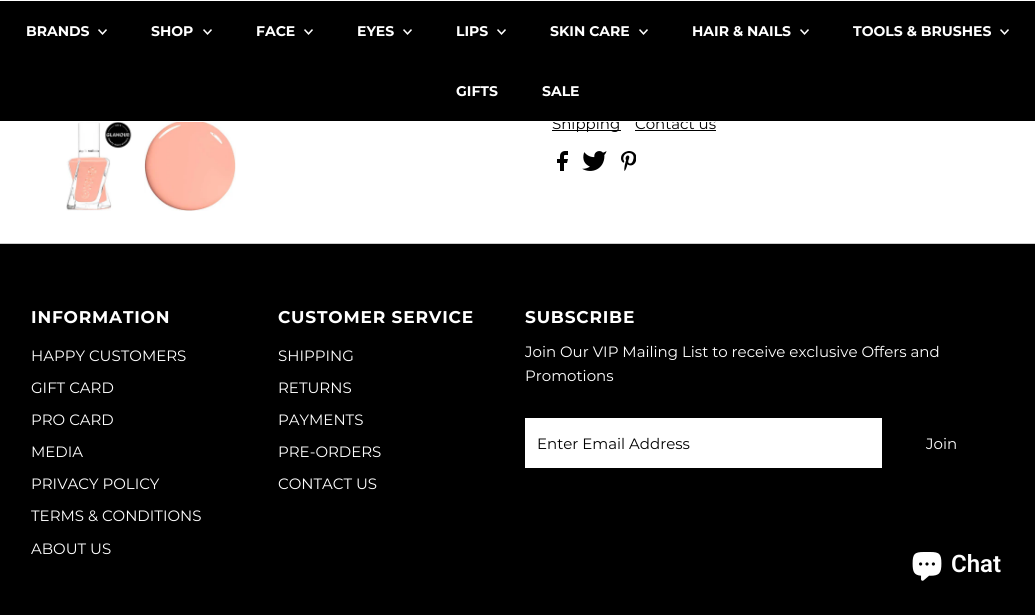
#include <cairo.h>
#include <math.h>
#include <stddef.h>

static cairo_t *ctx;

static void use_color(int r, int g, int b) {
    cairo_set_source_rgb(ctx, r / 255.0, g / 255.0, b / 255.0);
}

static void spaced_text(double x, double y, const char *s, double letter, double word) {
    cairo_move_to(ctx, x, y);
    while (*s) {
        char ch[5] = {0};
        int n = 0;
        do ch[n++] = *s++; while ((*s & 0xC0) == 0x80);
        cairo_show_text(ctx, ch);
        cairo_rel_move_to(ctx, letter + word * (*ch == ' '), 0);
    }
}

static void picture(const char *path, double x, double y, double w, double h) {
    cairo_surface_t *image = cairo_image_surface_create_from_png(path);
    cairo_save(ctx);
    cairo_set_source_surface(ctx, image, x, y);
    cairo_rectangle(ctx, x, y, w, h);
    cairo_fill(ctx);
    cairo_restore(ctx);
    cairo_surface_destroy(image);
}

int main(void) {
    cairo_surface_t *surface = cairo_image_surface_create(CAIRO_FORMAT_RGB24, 1035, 615);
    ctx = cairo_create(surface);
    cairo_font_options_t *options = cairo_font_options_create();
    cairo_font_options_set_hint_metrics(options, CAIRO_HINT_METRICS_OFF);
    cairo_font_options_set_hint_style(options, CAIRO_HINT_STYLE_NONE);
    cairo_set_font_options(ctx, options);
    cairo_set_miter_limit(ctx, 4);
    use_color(255, 255, 255);
    cairo_paint(ctx);
    use_color(0, 0, 0);
    cairo_rectangle(ctx, 552, 130, 69, 1);
    cairo_fill(ctx);
    cairo_select_font_face(ctx, "Montserrat", CAIRO_FONT_SLANT_NORMAL, CAIRO_FONT_WEIGHT_NORMAL);
    cairo_set_font_size(ctx, 15);
    cairo_move_to(ctx, 552, 129);
    cairo_show_text(ctx, "Shipping");
    cairo_move_to(ctx, 635, 129);
    cairo_show_text(ctx, "Contact us");
    use_color(255, 255, 255);
    cairo_rectangle(ctx, 553, 117, 162, 5);
    cairo_fill(ctx);
    use_color(0, 0, 0);
    cairo_rectangle(ctx, 0, 1, 1035, 120);
    cairo_fill(ctx);
    cairo_select_font_face(ctx, "Montserrat", CAIRO_FONT_SLANT_NORMAL, CAIRO_FONT_WEIGHT_BOLD);
    cairo_set_font_size(ctx, 14);
    use_color(255, 255, 255);
    cairo_move_to(ctx, 26, 36);
    cairo_show_text(ctx, "BRANDS");
    picture("img1.png", 98, 29, 9, 6);
    cairo_move_to(ctx, 151, 36);
    cairo_show_text(ctx, "SHOP");
    picture("img1.png", 203, 29, 9, 6);
    cairo_move_to(ctx, 256, 36);
    cairo_show_text(ctx, "FACE");
    picture("img1.png", 304, 29, 9, 6);
    cairo_move_to(ctx, 357, 36);
    cairo_show_text(ctx, "EYES");
    picture("img1.png", 403, 29, 9, 6);
    cairo_move_to(ctx, 456, 36);
    cairo_show_text(ctx, "LIPS");
    picture("img1.png", 497, 29, 9, 6);
    cairo_move_to(ctx, 550, 36);
    cairo_show_text(ctx, "SKIN CARE");
    picture("img1.png", 639, 29, 9, 6);
    cairo_move_to(ctx, 692, 36);
    cairo_show_text(ctx, "HAIR & NAILS");
    picture("img1.png", 800, 29, 9, 6);
    cairo_move_to(ctx, 853, 36);
    cairo_show_text(ctx, "TOOLS & BRUSHES");
    picture("img1.png", 1000, 29, 9, 6);
    cairo_move_to(ctx, 456, 96);
    cairo_show_text(ctx, "GIFTS");
    cairo_move_to(ctx, 542, 96);
    cairo_show_text(ctx, "SALE");
    picture("img2.png", 66, 122, 66, 89);
    picture("img3.png", 144, 122, 92, 89);
    use_color(0, 0, 0);
    cairo_rectangle(ctx, 635, 130, 81, 1);
    cairo_fill(ctx);
    picture("img4.png", 557, 151, 11, 20);
    picture("img5.png", 582, 151, 25, 20);
    picture("img6.png", 621, 151, 15, 20);
    cairo_rectangle(ctx, 0, 244, 1035, 371);
    cairo_fill(ctx);
    use_color(204, 204, 204);
    cairo_rectangle(ctx, 0, 243, 1035, 1);
    cairo_fill(ctx);
    cairo_set_font_size(ctx, 17);
    use_color(255, 255, 255);
    spaced_text(31, 323, "INFORMATION", 0.8, 0);
    cairo_select_font_face(ctx, "Montserrat", CAIRO_FONT_SLANT_NORMAL, CAIRO_FONT_WEIGHT_NORMAL);
    cairo_set_font_size(ctx, 15);
    cairo_move_to(ctx, 31, 361);
    cairo_show_text(ctx, "HAPPY CUSTOMERS");
    cairo_move_to(ctx, 31, 393);
    cairo_show_text(ctx, "GIFT CARD");
    cairo_move_to(ctx, 31, 425);
    cairo_show_text(ctx, "PRO CARD");
    cairo_move_to(ctx, 31, 457);
    cairo_show_text(ctx, "MEDIA");
    cairo_move_to(ctx, 31, 489);
    cairo_show_text(ctx, "PRIVACY POLICY");
    cairo_move_to(ctx, 31, 521);
    cairo_show_text(ctx, "TERMS & CONDITIONS");
    cairo_move_to(ctx, 31, 554);
    cairo_show_text(ctx, "ABOUT US");
    cairo_select_font_face(ctx, "Montserrat", CAIRO_FONT_SLANT_NORMAL, CAIRO_FONT_WEIGHT_BOLD);
    cairo_set_font_size(ctx, 17);
    spaced_text(278, 323, "CUSTOMER SERVICE", 0.8, 0);
    cairo_select_font_face(ctx, "Montserrat", CAIRO_FONT_SLANT_NORMAL, CAIRO_FONT_WEIGHT_NORMAL);
    cairo_set_font_size(ctx, 15);
    cairo_move_to(ctx, 278, 361);
    cairo_show_text(ctx, "SHIPPING");
    cairo_move_to(ctx, 278, 393);
    cairo_show_text(ctx, "RETURNS");
    cairo_move_to(ctx, 278, 425);
    cairo_show_text(ctx, "PAYMENTS");
    cairo_move_to(ctx, 278, 457);
    cairo_show_text(ctx, "PRE-ORDERS");
    cairo_move_to(ctx, 278, 489);
    cairo_show_text(ctx, "CONTACT US");
    cairo_select_font_face(ctx, "Montserrat", CAIRO_FONT_SLANT_NORMAL, CAIRO_FONT_WEIGHT_BOLD);
    cairo_set_font_size(ctx, 17);
    spaced_text(525, 323, "SUBSCRIBE", 0.8, 0);
    cairo_select_font_face(ctx, "Montserrat", CAIRO_FONT_SLANT_NORMAL, CAIRO_FONT_WEIGHT_NORMAL);
    cairo_set_font_size(ctx, 15);
    cairo_move_to(ctx, 525, 357);
    cairo_show_text(ctx, "Join Our VIP Mailing List to receive exclusive Offers and");
    cairo_move_to(ctx, 525, 381);
    cairo_show_text(ctx, "Promotions");
    cairo_rectangle(ctx, 525, 418, 357, 50);
    cairo_fill(ctx);
    use_color(0, 0, 0);
    cairo_move_to(ctx, 537, 449);
    cairo_show_text(ctx, "Enter Email Address");
    use_color(255, 255, 255);
    cairo_move_to(ctx, 926, 449);
    cairo_show_text(ctx, "Join");
    picture("img7.png", 912, 552, 30, 29);
    cairo_select_font_face(ctx, "Roboto SemiBold", CAIRO_FONT_SLANT_NORMAL, CAIRO_FONT_WEIGHT_NORMAL);
    cairo_set_font_size(ctx, 24);
    cairo_move_to(ctx, 951, 572);
    cairo_show_text(ctx, "Chat");
    cairo_surface_write_to_png(surface, "result.png");
    cairo_font_options_destroy(options);
    cairo_destroy(ctx);
    cairo_surface_destroy(surface);
    return 0;
}
